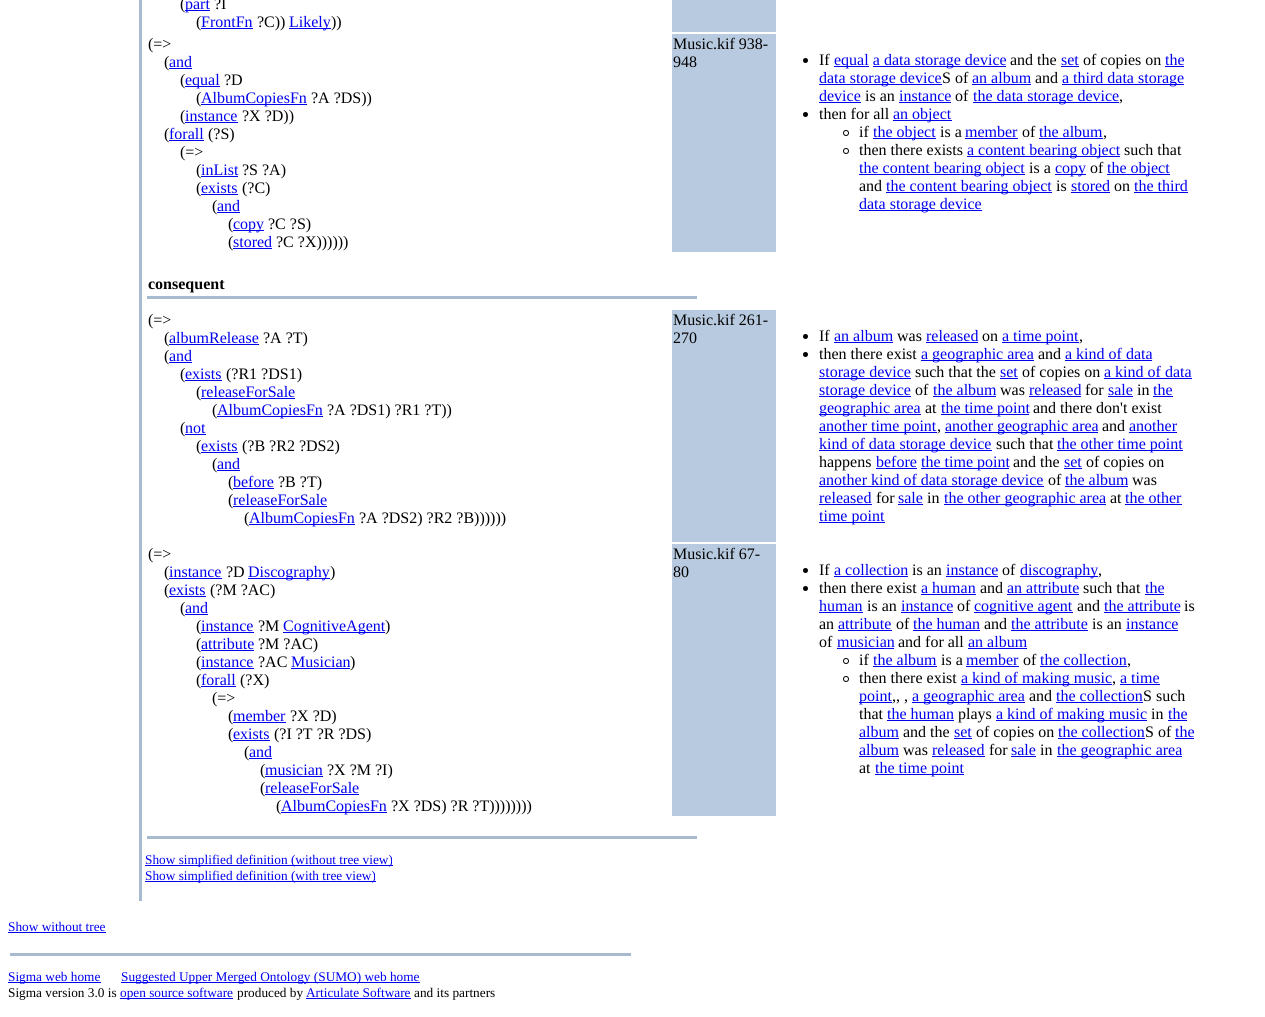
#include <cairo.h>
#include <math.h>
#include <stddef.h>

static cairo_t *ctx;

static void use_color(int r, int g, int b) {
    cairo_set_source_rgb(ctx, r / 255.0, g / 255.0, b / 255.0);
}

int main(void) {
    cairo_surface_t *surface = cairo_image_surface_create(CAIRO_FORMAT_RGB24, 1265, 1017);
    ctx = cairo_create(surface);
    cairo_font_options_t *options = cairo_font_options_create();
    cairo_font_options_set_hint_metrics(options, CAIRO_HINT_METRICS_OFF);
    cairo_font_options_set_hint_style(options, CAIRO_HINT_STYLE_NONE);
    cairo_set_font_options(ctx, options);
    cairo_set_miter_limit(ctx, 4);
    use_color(255, 255, 255);
    cairo_paint(ctx);
    use_color(168, 186, 207);
    cairo_rectangle(ctx, 139, 0, 3, 901);
    cairo_fill(ctx);
    cairo_select_font_face(ctx, "Liberation Serif", CAIRO_FONT_SLANT_NORMAL, CAIRO_FONT_WEIGHT_NORMAL);
    cairo_set_font_size(ctx, 16);
    use_color(0, 0, 0);
    cairo_move_to(ctx, 180, 9);
    cairo_show_text(ctx, "(");
    use_color(0, 0, 238);
    cairo_rectangle(ctx, 185, 10, 25, 1);
    cairo_fill(ctx);
    cairo_move_to(ctx, 185, 9);
    cairo_show_text(ctx, "part");
    use_color(0, 0, 0);
    cairo_move_to(ctx, 214, 9);
    cairo_show_text(ctx, "?I");
    cairo_move_to(ctx, 196, 27);
    cairo_show_text(ctx, "(");
    use_color(0, 0, 238);
    cairo_move_to(ctx, 201, 27);
    cairo_show_text(ctx, "FrontFn");
    cairo_rectangle(ctx, 201, 28, 52, 1);
    cairo_fill(ctx);
    use_color(0, 0, 0);
    cairo_move_to(ctx, 257, 27);
    cairo_show_text(ctx, "?C))");
    use_color(0, 0, 238);
    cairo_rectangle(ctx, 289, 28, 42, 1);
    cairo_fill(ctx);
    cairo_move_to(ctx, 289, 27);
    cairo_show_text(ctx, "Likely");
    use_color(0, 0, 0);
    cairo_move_to(ctx, 331, 27);
    cairo_show_text(ctx, "))");
    use_color(184, 202, 223);
    cairo_rectangle(ctx, 672, 0, 104, 32);
    cairo_fill(ctx);
    use_color(0, 0, 0);
    cairo_move_to(ctx, 148, 49);
    cairo_show_text(ctx, "(=>");
    cairo_move_to(ctx, 164, 67);
    cairo_show_text(ctx, "(");
    use_color(0, 0, 238);
    cairo_move_to(ctx, 169, 67);
    cairo_show_text(ctx, "and");
    cairo_rectangle(ctx, 169, 68, 23, 1);
    cairo_fill(ctx);
    use_color(0, 0, 0);
    cairo_move_to(ctx, 180, 85);
    cairo_show_text(ctx, "(");
    use_color(0, 0, 238);
    cairo_rectangle(ctx, 185, 86, 35, 1);
    cairo_fill(ctx);
    cairo_move_to(ctx, 185, 85);
    cairo_show_text(ctx, "equal");
    use_color(0, 0, 0);
    cairo_move_to(ctx, 224, 85);
    cairo_show_text(ctx, "?D");
    cairo_move_to(ctx, 196, 103);
    cairo_show_text(ctx, "(");
    use_color(0, 0, 238);
    cairo_rectangle(ctx, 201, 104, 106, 1);
    cairo_fill(ctx);
    cairo_move_to(ctx, 201, 103);
    cairo_show_text(ctx, "AlbumCopiesFn");
    use_color(0, 0, 0);
    cairo_move_to(ctx, 311, 103);
    cairo_show_text(ctx, "?A ?DS))");
    cairo_move_to(ctx, 180, 121);
    cairo_show_text(ctx, "(");
    use_color(0, 0, 238);
    cairo_move_to(ctx, 185, 121);
    cairo_show_text(ctx, "instance");
    cairo_rectangle(ctx, 185, 122, 53, 1);
    cairo_fill(ctx);
    use_color(0, 0, 0);
    cairo_move_to(ctx, 242, 121);
    cairo_show_text(ctx, "?X ?D))");
    cairo_move_to(ctx, 164, 139);
    cairo_show_text(ctx, "(");
    use_color(0, 0, 238);
    cairo_move_to(ctx, 169, 139);
    cairo_show_text(ctx, "forall");
    cairo_rectangle(ctx, 169, 140, 35, 1);
    cairo_fill(ctx);
    use_color(0, 0, 0);
    cairo_move_to(ctx, 208, 139);
    cairo_show_text(ctx, "(?S)");
    cairo_move_to(ctx, 180, 157);
    cairo_show_text(ctx, "(=>");
    cairo_move_to(ctx, 196, 175);
    cairo_show_text(ctx, "(");
    use_color(0, 0, 238);
    cairo_move_to(ctx, 201, 175);
    cairo_show_text(ctx, "inList");
    cairo_rectangle(ctx, 201, 176, 37, 1);
    cairo_fill(ctx);
    use_color(0, 0, 0);
    cairo_move_to(ctx, 242, 175);
    cairo_show_text(ctx, "?S ?A)");
    cairo_move_to(ctx, 196, 193);
    cairo_show_text(ctx, "(");
    use_color(0, 0, 238);
    cairo_move_to(ctx, 201, 193);
    cairo_show_text(ctx, "exists");
    cairo_rectangle(ctx, 201, 194, 37, 1);
    cairo_fill(ctx);
    use_color(0, 0, 0);
    cairo_move_to(ctx, 242, 193);
    cairo_show_text(ctx, "(?C)");
    cairo_move_to(ctx, 212, 211);
    cairo_show_text(ctx, "(");
    use_color(0, 0, 238);
    cairo_move_to(ctx, 217, 211);
    cairo_show_text(ctx, "and");
    cairo_rectangle(ctx, 217, 212, 23, 1);
    cairo_fill(ctx);
    use_color(0, 0, 0);
    cairo_move_to(ctx, 228, 229);
    cairo_show_text(ctx, "(");
    use_color(0, 0, 238);
    cairo_rectangle(ctx, 233, 230, 31, 1);
    cairo_fill(ctx);
    cairo_move_to(ctx, 233, 229);
    cairo_show_text(ctx, "copy");
    use_color(0, 0, 0);
    cairo_move_to(ctx, 268, 229);
    cairo_show_text(ctx, "?C ?S)");
    cairo_move_to(ctx, 228, 247);
    cairo_show_text(ctx, "(");
    use_color(0, 0, 238);
    cairo_move_to(ctx, 233, 247);
    cairo_show_text(ctx, "stored");
    cairo_rectangle(ctx, 233, 248, 39, 1);
    cairo_fill(ctx);
    use_color(0, 0, 0);
    cairo_move_to(ctx, 276, 247);
    cairo_show_text(ctx, "?C ?X))))))");
    use_color(184, 202, 223);
    cairo_rectangle(ctx, 672, 34, 104, 218);
    cairo_fill(ctx);
    use_color(0, 0, 0);
    cairo_move_to(ctx, 673, 49);
    cairo_show_text(ctx, "Music.kif 938-");
    cairo_move_to(ctx, 673, 67);
    cairo_show_text(ctx, "948");
    cairo_new_path(ctx);
    cairo_arc(ctx, 805.5, 60.5, 2.5, 0, 2 * M_PI);
    cairo_fill(ctx);
    cairo_move_to(ctx, 819, 65);
    cairo_show_text(ctx, "If");
    use_color(0, 0, 238);
    cairo_rectangle(ctx, 834, 66, 35, 1);
    cairo_fill(ctx);
    cairo_move_to(ctx, 834, 65);
    cairo_show_text(ctx, "equal a");
    cairo_rectangle(ctx, 873, 66, 133, 1);
    cairo_fill(ctx);
    cairo_move_to(ctx, 884, 65);
    cairo_show_text(ctx, "data storage device");
    use_color(0, 0, 0);
    cairo_move_to(ctx, 1010, 65);
    cairo_show_text(ctx, "and the");
    use_color(0, 0, 238);
    cairo_move_to(ctx, 1061, 65);
    cairo_show_text(ctx, "set");
    cairo_rectangle(ctx, 1061, 66, 18, 1);
    cairo_fill(ctx);
    use_color(0, 0, 0);
    cairo_move_to(ctx, 1083, 65);
    cairo_show_text(ctx, "of copies on");
    use_color(0, 0, 238);
    cairo_move_to(ctx, 1165, 65);
    cairo_show_text(ctx, "the");
    cairo_rectangle(ctx, 1165, 66, 19, 1);
    cairo_fill(ctx);
    cairo_rectangle(ctx, 819, 84, 123, 1);
    cairo_fill(ctx);
    cairo_move_to(ctx, 819, 83);
    cairo_show_text(ctx, "data storage device");
    use_color(0, 0, 0);
    cairo_move_to(ctx, 942, 83);
    cairo_show_text(ctx, "S of");
    use_color(0, 0, 238);
    cairo_move_to(ctx, 972, 83);
    cairo_show_text(ctx, "an album");
    cairo_rectangle(ctx, 972, 84, 59, 1);
    cairo_fill(ctx);
    use_color(0, 0, 0);
    cairo_move_to(ctx, 1035, 83);
    cairo_show_text(ctx, "and");
    use_color(0, 0, 238);
    cairo_rectangle(ctx, 1062, 84, 122, 1);
    cairo_fill(ctx);
    cairo_move_to(ctx, 1062, 83);
    cairo_show_text(ctx, "a third data storage");
    cairo_move_to(ctx, 819, 101);
    cairo_show_text(ctx, "device");
    cairo_rectangle(ctx, 819, 102, 42, 1);
    cairo_fill(ctx);
    use_color(0, 0, 0);
    cairo_move_to(ctx, 865, 101);
    cairo_show_text(ctx, "is an");
    use_color(0, 0, 238);
    cairo_move_to(ctx, 899, 101);
    cairo_show_text(ctx, "instance");
    cairo_rectangle(ctx, 899, 102, 52, 1);
    cairo_fill(ctx);
    use_color(0, 0, 0);
    cairo_move_to(ctx, 955, 101);
    cairo_show_text(ctx, "of");
    use_color(0, 0, 238);
    cairo_rectangle(ctx, 973, 102, 146, 1);
    cairo_fill(ctx);
    cairo_move_to(ctx, 973, 101);
    cairo_show_text(ctx, "the data storage device");
    use_color(0, 0, 0);
    cairo_move_to(ctx, 1119, 101);
    cairo_show_text(ctx, ",");
    cairo_new_path(ctx);
    cairo_arc(ctx, 805.5, 114.5, 2.5, 0, 2 * M_PI);
    cairo_fill(ctx);
    cairo_move_to(ctx, 819, 119);
    cairo_show_text(ctx, "then for all");
    use_color(0, 0, 238);
    cairo_rectangle(ctx, 893, 120, 59, 1);
    cairo_fill(ctx);
    cairo_move_to(ctx, 893, 119);
    cairo_show_text(ctx, "an object");
    cairo_new_path(ctx);
    cairo_arc(ctx, 846, 133, 2.5, 0, 2 * M_PI);
    use_color(0, 0, 0);
    cairo_set_line_width(ctx, 1);
    cairo_stroke(ctx);
    cairo_move_to(ctx, 859, 137);
    cairo_show_text(ctx, "if");
    use_color(0, 0, 238);
    cairo_rectangle(ctx, 873, 138, 63, 1);
    cairo_fill(ctx);
    cairo_move_to(ctx, 873, 137);
    cairo_show_text(ctx, "the object");
    use_color(0, 0, 0);
    cairo_move_to(ctx, 940, 137);
    cairo_show_text(ctx, "is a");
    use_color(0, 0, 238);
    cairo_move_to(ctx, 965, 137);
    cairo_show_text(ctx, "member");
    cairo_rectangle(ctx, 965, 138, 53, 1);
    cairo_fill(ctx);
    use_color(0, 0, 0);
    cairo_move_to(ctx, 1022, 137);
    cairo_show_text(ctx, "of");
    use_color(0, 0, 238);
    cairo_move_to(ctx, 1039, 137);
    cairo_show_text(ctx, "the album");
    cairo_rectangle(ctx, 1039, 138, 64, 1);
    cairo_fill(ctx);
    use_color(0, 0, 0);
    cairo_move_to(ctx, 1103, 137);
    cairo_show_text(ctx, ",");
    cairo_new_path(ctx);
    cairo_arc(ctx, 846, 151, 2.5, 0, 2 * M_PI);
    cairo_stroke(ctx);
    cairo_move_to(ctx, 859, 155);
    cairo_show_text(ctx, "then there exists");
    use_color(0, 0, 238);
    cairo_rectangle(ctx, 967, 156, 153, 1);
    cairo_fill(ctx);
    cairo_move_to(ctx, 967, 155);
    cairo_show_text(ctx, "a content bearing object");
    use_color(0, 0, 0);
    cairo_move_to(ctx, 1124, 155);
    cairo_show_text(ctx, "such that");
    use_color(0, 0, 238);
    cairo_rectangle(ctx, 859, 174, 166, 1);
    cairo_fill(ctx);
    cairo_move_to(ctx, 859, 173);
    cairo_show_text(ctx, "the content bearing object");
    use_color(0, 0, 0);
    cairo_move_to(ctx, 1029, 173);
    cairo_show_text(ctx, "is a");
    use_color(0, 0, 238);
    cairo_rectangle(ctx, 1055, 174, 31, 1);
    cairo_fill(ctx);
    cairo_move_to(ctx, 1055, 173);
    cairo_show_text(ctx, "copy");
    use_color(0, 0, 0);
    cairo_move_to(ctx, 1090, 173);
    cairo_show_text(ctx, "of");
    use_color(0, 0, 238);
    cairo_rectangle(ctx, 1107, 174, 63, 1);
    cairo_fill(ctx);
    cairo_move_to(ctx, 1107, 173);
    cairo_show_text(ctx, "the object");
    use_color(0, 0, 0);
    cairo_move_to(ctx, 859, 191);
    cairo_show_text(ctx, "and");
    use_color(0, 0, 238);
    cairo_rectangle(ctx, 886, 192, 166, 1);
    cairo_fill(ctx);
    cairo_move_to(ctx, 886, 191);
    cairo_show_text(ctx, "the content bearing object");
    use_color(0, 0, 0);
    cairo_move_to(ctx, 1056, 191);
    cairo_show_text(ctx, "is");
    use_color(0, 0, 238);
    cairo_move_to(ctx, 1071, 191);
    cairo_show_text(ctx, "stored");
    cairo_rectangle(ctx, 1071, 192, 39, 1);
    cairo_fill(ctx);
    use_color(0, 0, 0);
    cairo_move_to(ctx, 1114, 191);
    cairo_show_text(ctx, "on");
    use_color(0, 0, 238);
    cairo_move_to(ctx, 1134, 191);
    cairo_show_text(ctx, "the third");
    cairo_rectangle(ctx, 1134, 192, 54, 1);
    cairo_fill(ctx);
    cairo_rectangle(ctx, 859, 210, 123, 1);
    cairo_fill(ctx);
    cairo_move_to(ctx, 859, 209);
    cairo_show_text(ctx, "data storage device");
    cairo_select_font_face(ctx, "Liberation Serif", CAIRO_FONT_SLANT_NORMAL, CAIRO_FONT_WEIGHT_BOLD);
    use_color(0, 0, 0);
    cairo_move_to(ctx, 148, 289);
    cairo_show_text(ctx, "consequent");
    use_color(168, 186, 207);
    cairo_rectangle(ctx, 147, 296, 550, 3);
    cairo_fill(ctx);
    cairo_select_font_face(ctx, "Liberation Serif", CAIRO_FONT_SLANT_NORMAL, CAIRO_FONT_WEIGHT_NORMAL);
    use_color(0, 0, 0);
    cairo_move_to(ctx, 148, 325);
    cairo_show_text(ctx, "(=>");
    cairo_move_to(ctx, 164, 343);
    cairo_show_text(ctx, "(");
    use_color(0, 0, 238);
    cairo_move_to(ctx, 169, 343);
    cairo_show_text(ctx, "albumRelease");
    cairo_rectangle(ctx, 169, 344, 90, 1);
    cairo_fill(ctx);
    use_color(0, 0, 0);
    cairo_move_to(ctx, 263, 343);
    cairo_show_text(ctx, "?A ?T)");
    cairo_move_to(ctx, 164, 361);
    cairo_show_text(ctx, "(");
    use_color(0, 0, 238);
    cairo_move_to(ctx, 169, 361);
    cairo_show_text(ctx, "and");
    cairo_rectangle(ctx, 169, 362, 23, 1);
    cairo_fill(ctx);
    use_color(0, 0, 0);
    cairo_move_to(ctx, 180, 379);
    cairo_show_text(ctx, "(");
    use_color(0, 0, 238);
    cairo_move_to(ctx, 185, 379);
    cairo_show_text(ctx, "exists");
    cairo_rectangle(ctx, 185, 380, 37, 1);
    cairo_fill(ctx);
    use_color(0, 0, 0);
    cairo_move_to(ctx, 226, 379);
    cairo_show_text(ctx, "(?R1 ?DS1)");
    cairo_move_to(ctx, 196, 397);
    cairo_show_text(ctx, "(");
    use_color(0, 0, 238);
    cairo_move_to(ctx, 201, 397);
    cairo_show_text(ctx, "releaseForSale");
    cairo_rectangle(ctx, 201, 398, 94, 1);
    cairo_fill(ctx);
    use_color(0, 0, 0);
    cairo_move_to(ctx, 212, 415);
    cairo_show_text(ctx, "(");
    use_color(0, 0, 238);
    cairo_rectangle(ctx, 217, 416, 106, 1);
    cairo_fill(ctx);
    cairo_move_to(ctx, 217, 415);
    cairo_show_text(ctx, "AlbumCopiesFn");
    use_color(0, 0, 0);
    cairo_move_to(ctx, 327, 415);
    cairo_show_text(ctx, "?A ?DS1) ?R1 ?T))");
    cairo_move_to(ctx, 180, 433);
    cairo_show_text(ctx, "(");
    use_color(0, 0, 238);
    cairo_move_to(ctx, 185, 433);
    cairo_show_text(ctx, "not");
    cairo_rectangle(ctx, 185, 434, 21, 1);
    cairo_fill(ctx);
    use_color(0, 0, 0);
    cairo_move_to(ctx, 196, 451);
    cairo_show_text(ctx, "(");
    use_color(0, 0, 238);
    cairo_move_to(ctx, 201, 451);
    cairo_show_text(ctx, "exists");
    cairo_rectangle(ctx, 201, 452, 37, 1);
    cairo_fill(ctx);
    use_color(0, 0, 0);
    cairo_move_to(ctx, 242, 451);
    cairo_show_text(ctx, "(?B ?R2 ?DS2)");
    cairo_move_to(ctx, 212, 469);
    cairo_show_text(ctx, "(");
    use_color(0, 0, 238);
    cairo_move_to(ctx, 217, 469);
    cairo_show_text(ctx, "and");
    cairo_rectangle(ctx, 217, 470, 23, 1);
    cairo_fill(ctx);
    use_color(0, 0, 0);
    cairo_move_to(ctx, 228, 487);
    cairo_show_text(ctx, "(");
    use_color(0, 0, 238);
    cairo_move_to(ctx, 233, 487);
    cairo_show_text(ctx, "before");
    cairo_rectangle(ctx, 233, 488, 41, 1);
    cairo_fill(ctx);
    use_color(0, 0, 0);
    cairo_move_to(ctx, 278, 487);
    cairo_show_text(ctx, "?B ?T)");
    cairo_move_to(ctx, 228, 505);
    cairo_show_text(ctx, "(");
    use_color(0, 0, 238);
    cairo_move_to(ctx, 233, 505);
    cairo_show_text(ctx, "releaseForSale");
    cairo_rectangle(ctx, 233, 506, 94, 1);
    cairo_fill(ctx);
    use_color(0, 0, 0);
    cairo_move_to(ctx, 244, 523);
    cairo_show_text(ctx, "(");
    use_color(0, 0, 238);
    cairo_rectangle(ctx, 249, 524, 106, 1);
    cairo_fill(ctx);
    cairo_move_to(ctx, 249, 523);
    cairo_show_text(ctx, "AlbumCopiesFn");
    use_color(0, 0, 0);
    cairo_move_to(ctx, 359, 523);
    cairo_show_text(ctx, "?A ?DS2) ?R2 ?B))))))");
    use_color(184, 202, 223);
    cairo_rectangle(ctx, 672, 310, 104, 232);
    cairo_fill(ctx);
    use_color(0, 0, 0);
    cairo_move_to(ctx, 673, 325);
    cairo_show_text(ctx, "Music.kif 261-");
    cairo_move_to(ctx, 673, 343);
    cairo_show_text(ctx, "270");
    cairo_new_path(ctx);
    cairo_arc(ctx, 805.5, 336.5, 2.5, 0, 2 * M_PI);
    cairo_fill(ctx);
    cairo_move_to(ctx, 819, 341);
    cairo_show_text(ctx, "If");
    use_color(0, 0, 238);
    cairo_move_to(ctx, 834, 341);
    cairo_show_text(ctx, "an album");
    cairo_rectangle(ctx, 834, 342, 59, 1);
    cairo_fill(ctx);
    use_color(0, 0, 0);
    cairo_move_to(ctx, 897, 341);
    cairo_show_text(ctx, "was");
    use_color(0, 0, 238);
    cairo_move_to(ctx, 926, 341);
    cairo_show_text(ctx, "released");
    cairo_rectangle(ctx, 926, 342, 52, 1);
    cairo_fill(ctx);
    use_color(0, 0, 0);
    cairo_move_to(ctx, 982, 341);
    cairo_show_text(ctx, "on");
    use_color(0, 0, 238);
    cairo_rectangle(ctx, 1002, 342, 77, 1);
    cairo_fill(ctx);
    cairo_move_to(ctx, 1002, 341);
    cairo_show_text(ctx, "a time point");
    use_color(0, 0, 0);
    cairo_move_to(ctx, 1079, 341);
    cairo_show_text(ctx, ",");
    cairo_new_path(ctx);
    cairo_arc(ctx, 805.5, 354.5, 2.5, 0, 2 * M_PI);
    cairo_fill(ctx);
    cairo_move_to(ctx, 819, 359);
    cairo_show_text(ctx, "then there exist");
    use_color(0, 0, 238);
    cairo_rectangle(ctx, 921, 360, 113, 1);
    cairo_fill(ctx);
    cairo_move_to(ctx, 921, 359);
    cairo_show_text(ctx, "a geographic area");
    use_color(0, 0, 0);
    cairo_move_to(ctx, 1038, 359);
    cairo_show_text(ctx, "and");
    use_color(0, 0, 238);
    cairo_move_to(ctx, 1065, 359);
    cairo_show_text(ctx, "a kind of data");
    cairo_rectangle(ctx, 1065, 360, 87, 1);
    cairo_fill(ctx);
    cairo_rectangle(ctx, 819, 378, 92, 1);
    cairo_fill(ctx);
    cairo_move_to(ctx, 819, 377);
    cairo_show_text(ctx, "storage device");
    use_color(0, 0, 0);
    cairo_move_to(ctx, 915, 377);
    cairo_show_text(ctx, "such that the");
    use_color(0, 0, 238);
    cairo_move_to(ctx, 1000, 377);
    cairo_show_text(ctx, "set");
    cairo_rectangle(ctx, 1000, 378, 18, 1);
    cairo_fill(ctx);
    use_color(0, 0, 0);
    cairo_move_to(ctx, 1022, 377);
    cairo_show_text(ctx, "of copies on");
    use_color(0, 0, 238);
    cairo_move_to(ctx, 1104, 377);
    cairo_show_text(ctx, "a kind of data");
    cairo_rectangle(ctx, 1104, 378, 88, 1);
    cairo_fill(ctx);
    cairo_rectangle(ctx, 819, 396, 92, 1);
    cairo_fill(ctx);
    cairo_move_to(ctx, 819, 395);
    cairo_show_text(ctx, "storage device");
    use_color(0, 0, 0);
    cairo_move_to(ctx, 915, 395);
    cairo_show_text(ctx, "of");
    use_color(0, 0, 238);
    cairo_move_to(ctx, 933, 395);
    cairo_show_text(ctx, "the album");
    cairo_rectangle(ctx, 933, 396, 63, 1);
    cairo_fill(ctx);
    use_color(0, 0, 0);
    cairo_move_to(ctx, 1000, 395);
    cairo_show_text(ctx, "was");
    use_color(0, 0, 238);
    cairo_move_to(ctx, 1029, 395);
    cairo_show_text(ctx, "released");
    cairo_rectangle(ctx, 1029, 396, 52, 1);
    cairo_fill(ctx);
    use_color(0, 0, 0);
    cairo_move_to(ctx, 1085, 395);
    cairo_show_text(ctx, "for");
    use_color(0, 0, 238);
    cairo_move_to(ctx, 1108, 395);
    cairo_show_text(ctx, "sale");
    cairo_rectangle(ctx, 1108, 396, 25, 1);
    cairo_fill(ctx);
    use_color(0, 0, 0);
    cairo_move_to(ctx, 1137, 395);
    cairo_show_text(ctx, "in");
    use_color(0, 0, 238);
    cairo_move_to(ctx, 1153, 395);
    cairo_show_text(ctx, "the");
    cairo_rectangle(ctx, 1153, 396, 20, 1);
    cairo_fill(ctx);
    cairo_rectangle(ctx, 819, 414, 102, 1);
    cairo_fill(ctx);
    cairo_move_to(ctx, 819, 413);
    cairo_show_text(ctx, "geographic area");
    use_color(0, 0, 0);
    cairo_move_to(ctx, 925, 413);
    cairo_show_text(ctx, "at");
    use_color(0, 0, 238);
    cairo_rectangle(ctx, 941, 414, 88, 1);
    cairo_fill(ctx);
    cairo_move_to(ctx, 941, 413);
    cairo_show_text(ctx, "the time point");
    use_color(0, 0, 0);
    cairo_move_to(ctx, 1033, 413);
    cairo_show_text(ctx, "and there don't exist");
    use_color(0, 0, 238);
    cairo_rectangle(ctx, 819, 432, 118, 1);
    cairo_fill(ctx);
    cairo_move_to(ctx, 819, 431);
    cairo_show_text(ctx, "another time point");
    use_color(0, 0, 0);
    cairo_move_to(ctx, 937, 431);
    cairo_show_text(ctx, ",");
    use_color(0, 0, 238);
    cairo_rectangle(ctx, 945, 432, 153, 1);
    cairo_fill(ctx);
    cairo_move_to(ctx, 945, 431);
    cairo_show_text(ctx, "another geographic area");
    use_color(0, 0, 0);
    cairo_move_to(ctx, 1102, 431);
    cairo_show_text(ctx, "and");
    use_color(0, 0, 238);
    cairo_move_to(ctx, 1129, 431);
    cairo_show_text(ctx, "another");
    cairo_rectangle(ctx, 1129, 432, 48, 1);
    cairo_fill(ctx);
    cairo_rectangle(ctx, 819, 450, 173, 1);
    cairo_fill(ctx);
    cairo_move_to(ctx, 819, 449);
    cairo_show_text(ctx, "kind of data storage device");
    use_color(0, 0, 0);
    cairo_move_to(ctx, 996, 449);
    cairo_show_text(ctx, "such that");
    use_color(0, 0, 238);
    cairo_rectangle(ctx, 1057, 450, 126, 1);
    cairo_fill(ctx);
    cairo_move_to(ctx, 1057, 449);
    cairo_show_text(ctx, "the other time point");
    use_color(0, 0, 0);
    cairo_move_to(ctx, 819, 467);
    cairo_show_text(ctx, "happens");
    use_color(0, 0, 238);
    cairo_move_to(ctx, 876, 467);
    cairo_show_text(ctx, "before");
    cairo_rectangle(ctx, 876, 468, 41, 1);
    cairo_fill(ctx);
    cairo_rectangle(ctx, 921, 468, 88, 1);
    cairo_fill(ctx);
    cairo_move_to(ctx, 921, 467);
    cairo_show_text(ctx, "the time point");
    use_color(0, 0, 0);
    cairo_move_to(ctx, 1013, 467);
    cairo_show_text(ctx, "and the");
    use_color(0, 0, 238);
    cairo_move_to(ctx, 1064, 467);
    cairo_show_text(ctx, "set");
    cairo_rectangle(ctx, 1064, 468, 18, 1);
    cairo_fill(ctx);
    use_color(0, 0, 0);
    cairo_move_to(ctx, 1086, 467);
    cairo_show_text(ctx, "of copies on");
    use_color(0, 0, 238);
    cairo_rectangle(ctx, 819, 486, 225, 1);
    cairo_fill(ctx);
    cairo_move_to(ctx, 819, 485);
    cairo_show_text(ctx, "another kind of data storage device");
    use_color(0, 0, 0);
    cairo_move_to(ctx, 1048, 485);
    cairo_show_text(ctx, "of");
    use_color(0, 0, 238);
    cairo_move_to(ctx, 1065, 485);
    cairo_show_text(ctx, "the album");
    cairo_rectangle(ctx, 1065, 486, 63, 1);
    cairo_fill(ctx);
    use_color(0, 0, 0);
    cairo_move_to(ctx, 1132, 485);
    cairo_show_text(ctx, "was");
    use_color(0, 0, 238);
    cairo_move_to(ctx, 819, 503);
    cairo_show_text(ctx, "released");
    cairo_rectangle(ctx, 819, 504, 53, 1);
    cairo_fill(ctx);
    use_color(0, 0, 0);
    cairo_move_to(ctx, 876, 503);
    cairo_show_text(ctx, "for");
    use_color(0, 0, 238);
    cairo_move_to(ctx, 898, 503);
    cairo_show_text(ctx, "sale");
    cairo_rectangle(ctx, 898, 504, 25, 1);
    cairo_fill(ctx);
    use_color(0, 0, 0);
    cairo_move_to(ctx, 927, 503);
    cairo_show_text(ctx, "in");
    use_color(0, 0, 238);
    cairo_rectangle(ctx, 944, 504, 162, 1);
    cairo_fill(ctx);
    cairo_move_to(ctx, 944, 503);
    cairo_show_text(ctx, "the other geographic area");
    use_color(0, 0, 0);
    cairo_move_to(ctx, 1110, 503);
    cairo_show_text(ctx, "at");
    use_color(0, 0, 238);
    cairo_move_to(ctx, 1125, 503);
    cairo_show_text(ctx, "the other");
    cairo_rectangle(ctx, 1125, 504, 57, 1);
    cairo_fill(ctx);
    cairo_rectangle(ctx, 819, 522, 66, 1);
    cairo_fill(ctx);
    cairo_move_to(ctx, 819, 521);
    cairo_show_text(ctx, "time point");
    use_color(0, 0, 0);
    cairo_move_to(ctx, 148, 559);
    cairo_show_text(ctx, "(=>");
    cairo_move_to(ctx, 164, 577);
    cairo_show_text(ctx, "(");
    use_color(0, 0, 238);
    cairo_move_to(ctx, 169, 577);
    cairo_show_text(ctx, "instance");
    cairo_rectangle(ctx, 169, 578, 53, 1);
    cairo_fill(ctx);
    use_color(0, 0, 0);
    cairo_move_to(ctx, 226, 577);
    cairo_show_text(ctx, "?D");
    use_color(0, 0, 238);
    cairo_rectangle(ctx, 248, 578, 82, 1);
    cairo_fill(ctx);
    cairo_move_to(ctx, 248, 577);
    cairo_show_text(ctx, "Discography");
    use_color(0, 0, 0);
    cairo_move_to(ctx, 330, 577);
    cairo_show_text(ctx, ")");
    cairo_move_to(ctx, 164, 595);
    cairo_show_text(ctx, "(");
    use_color(0, 0, 238);
    cairo_move_to(ctx, 169, 595);
    cairo_show_text(ctx, "exists");
    cairo_rectangle(ctx, 169, 596, 37, 1);
    cairo_fill(ctx);
    use_color(0, 0, 0);
    cairo_move_to(ctx, 210, 595);
    cairo_show_text(ctx, "(?M ?AC)");
    cairo_move_to(ctx, 180, 613);
    cairo_show_text(ctx, "(");
    use_color(0, 0, 238);
    cairo_move_to(ctx, 185, 613);
    cairo_show_text(ctx, "and");
    cairo_rectangle(ctx, 185, 614, 23, 1);
    cairo_fill(ctx);
    use_color(0, 0, 0);
    cairo_move_to(ctx, 196, 631);
    cairo_show_text(ctx, "(");
    use_color(0, 0, 238);
    cairo_move_to(ctx, 201, 631);
    cairo_show_text(ctx, "instance");
    cairo_rectangle(ctx, 201, 632, 53, 1);
    cairo_fill(ctx);
    use_color(0, 0, 0);
    cairo_move_to(ctx, 258, 631);
    cairo_show_text(ctx, "?M");
    use_color(0, 0, 238);
    cairo_rectangle(ctx, 283, 632, 102, 1);
    cairo_fill(ctx);
    cairo_move_to(ctx, 283, 631);
    cairo_show_text(ctx, "CognitiveAgent");
    use_color(0, 0, 0);
    cairo_move_to(ctx, 385, 631);
    cairo_show_text(ctx, ")");
    cairo_move_to(ctx, 196, 649);
    cairo_show_text(ctx, "(");
    use_color(0, 0, 238);
    cairo_move_to(ctx, 201, 649);
    cairo_show_text(ctx, "attribute");
    cairo_rectangle(ctx, 201, 650, 53, 1);
    cairo_fill(ctx);
    use_color(0, 0, 0);
    cairo_move_to(ctx, 258, 649);
    cairo_show_text(ctx, "?M ?AC)");
    cairo_move_to(ctx, 196, 667);
    cairo_show_text(ctx, "(");
    use_color(0, 0, 238);
    cairo_move_to(ctx, 201, 667);
    cairo_show_text(ctx, "instance");
    cairo_rectangle(ctx, 201, 668, 53, 1);
    cairo_fill(ctx);
    use_color(0, 0, 0);
    cairo_move_to(ctx, 258, 667);
    cairo_show_text(ctx, "?AC");
    use_color(0, 0, 238);
    cairo_move_to(ctx, 291, 667);
    cairo_show_text(ctx, "Musician");
    cairo_rectangle(ctx, 291, 668, 59, 1);
    cairo_fill(ctx);
    use_color(0, 0, 0);
    cairo_move_to(ctx, 350, 667);
    cairo_show_text(ctx, ")");
    cairo_move_to(ctx, 196, 685);
    cairo_show_text(ctx, "(");
    use_color(0, 0, 238);
    cairo_move_to(ctx, 201, 685);
    cairo_show_text(ctx, "forall");
    cairo_rectangle(ctx, 201, 686, 35, 1);
    cairo_fill(ctx);
    use_color(0, 0, 0);
    cairo_move_to(ctx, 240, 685);
    cairo_show_text(ctx, "(?X)");
    cairo_move_to(ctx, 212, 703);
    cairo_show_text(ctx, "(=>");
    cairo_move_to(ctx, 228, 721);
    cairo_show_text(ctx, "(");
    use_color(0, 0, 238);
    cairo_move_to(ctx, 233, 721);
    cairo_show_text(ctx, "member");
    cairo_rectangle(ctx, 233, 722, 53, 1);
    cairo_fill(ctx);
    use_color(0, 0, 0);
    cairo_move_to(ctx, 290, 721);
    cairo_show_text(ctx, "?X ?D)");
    cairo_move_to(ctx, 228, 739);
    cairo_show_text(ctx, "(");
    use_color(0, 0, 238);
    cairo_move_to(ctx, 233, 739);
    cairo_show_text(ctx, "exists");
    cairo_rectangle(ctx, 233, 740, 37, 1);
    cairo_fill(ctx);
    use_color(0, 0, 0);
    cairo_move_to(ctx, 274, 739);
    cairo_show_text(ctx, "(?I ?T ?R ?DS)");
    cairo_move_to(ctx, 244, 757);
    cairo_show_text(ctx, "(");
    use_color(0, 0, 238);
    cairo_move_to(ctx, 249, 757);
    cairo_show_text(ctx, "and");
    cairo_rectangle(ctx, 249, 758, 23, 1);
    cairo_fill(ctx);
    use_color(0, 0, 0);
    cairo_move_to(ctx, 260, 775);
    cairo_show_text(ctx, "(");
    use_color(0, 0, 238);
    cairo_move_to(ctx, 265, 775);
    cairo_show_text(ctx, "musician");
    cairo_rectangle(ctx, 265, 776, 58, 1);
    cairo_fill(ctx);
    use_color(0, 0, 0);
    cairo_move_to(ctx, 327, 775);
    cairo_show_text(ctx, "?X ?M ?I)");
    cairo_move_to(ctx, 260, 793);
    cairo_show_text(ctx, "(");
    use_color(0, 0, 238);
    cairo_move_to(ctx, 265, 793);
    cairo_show_text(ctx, "releaseForSale");
    cairo_rectangle(ctx, 265, 794, 94, 1);
    cairo_fill(ctx);
    use_color(0, 0, 0);
    cairo_move_to(ctx, 276, 811);
    cairo_show_text(ctx, "(");
    use_color(0, 0, 238);
    cairo_rectangle(ctx, 281, 812, 106, 1);
    cairo_fill(ctx);
    cairo_move_to(ctx, 281, 811);
    cairo_show_text(ctx, "AlbumCopiesFn");
    use_color(0, 0, 0);
    cairo_move_to(ctx, 391, 811);
    cairo_show_text(ctx, "?X ?DS) ?R ?T))))))))");
    use_color(184, 202, 223);
    cairo_rectangle(ctx, 672, 544, 104, 272);
    cairo_fill(ctx);
    use_color(0, 0, 0);
    cairo_move_to(ctx, 673, 559);
    cairo_show_text(ctx, "Music.kif 67-");
    cairo_move_to(ctx, 673, 577);
    cairo_show_text(ctx, "80");
    cairo_new_path(ctx);
    cairo_arc(ctx, 805.5, 570.5, 2.5, 0, 2 * M_PI);
    cairo_fill(ctx);
    cairo_move_to(ctx, 819, 575);
    cairo_show_text(ctx, "If");
    use_color(0, 0, 238);
    cairo_move_to(ctx, 834, 575);
    cairo_show_text(ctx, "a collection");
    cairo_rectangle(ctx, 834, 576, 74, 1);
    cairo_fill(ctx);
    use_color(0, 0, 0);
    cairo_move_to(ctx, 912, 575);
    cairo_show_text(ctx, "is an");
    use_color(0, 0, 238);
    cairo_move_to(ctx, 946, 575);
    cairo_show_text(ctx, "instance");
    cairo_rectangle(ctx, 946, 576, 52, 1);
    cairo_fill(ctx);
    use_color(0, 0, 0);
    cairo_move_to(ctx, 1002, 575);
    cairo_show_text(ctx, "of");
    use_color(0, 0, 238);
    cairo_rectangle(ctx, 1020, 576, 78, 1);
    cairo_fill(ctx);
    cairo_move_to(ctx, 1020, 575);
    cairo_show_text(ctx, "discography");
    use_color(0, 0, 0);
    cairo_move_to(ctx, 1098, 575);
    cairo_show_text(ctx, ",");
    cairo_new_path(ctx);
    cairo_arc(ctx, 805.5, 588.5, 2.5, 0, 2 * M_PI);
    cairo_fill(ctx);
    cairo_move_to(ctx, 819, 593);
    cairo_show_text(ctx, "then there exist");
    use_color(0, 0, 238);
    cairo_move_to(ctx, 921, 593);
    cairo_show_text(ctx, "a human");
    cairo_rectangle(ctx, 921, 594, 55, 1);
    cairo_fill(ctx);
    use_color(0, 0, 0);
    cairo_move_to(ctx, 980, 593);
    cairo_show_text(ctx, "and");
    use_color(0, 0, 238);
    cairo_move_to(ctx, 1007, 593);
    cairo_show_text(ctx, "an attribute");
    cairo_rectangle(ctx, 1007, 594, 72, 1);
    cairo_fill(ctx);
    use_color(0, 0, 0);
    cairo_move_to(ctx, 1083, 593);
    cairo_show_text(ctx, "such that");
    use_color(0, 0, 238);
    cairo_move_to(ctx, 1145, 593);
    cairo_show_text(ctx, "the");
    cairo_rectangle(ctx, 1145, 594, 19, 1);
    cairo_fill(ctx);
    cairo_move_to(ctx, 819, 611);
    cairo_show_text(ctx, "human");
    cairo_rectangle(ctx, 819, 612, 44, 1);
    cairo_fill(ctx);
    use_color(0, 0, 0);
    cairo_move_to(ctx, 867, 611);
    cairo_show_text(ctx, "is an");
    use_color(0, 0, 238);
    cairo_move_to(ctx, 901, 611);
    cairo_show_text(ctx, "instance");
    cairo_rectangle(ctx, 901, 612, 52, 1);
    cairo_fill(ctx);
    use_color(0, 0, 0);
    cairo_move_to(ctx, 957, 611);
    cairo_show_text(ctx, "of");
    use_color(0, 0, 238);
    cairo_rectangle(ctx, 974, 612, 99, 1);
    cairo_fill(ctx);
    cairo_move_to(ctx, 974, 611);
    cairo_show_text(ctx, "cognitive agent");
    use_color(0, 0, 0);
    cairo_move_to(ctx, 1077, 611);
    cairo_show_text(ctx, "and");
    use_color(0, 0, 238);
    cairo_move_to(ctx, 1104, 611);
    cairo_show_text(ctx, "the attribute");
    cairo_rectangle(ctx, 1104, 612, 76, 1);
    cairo_fill(ctx);
    use_color(0, 0, 0);
    cairo_move_to(ctx, 1184, 611);
    cairo_show_text(ctx, "is");
    cairo_move_to(ctx, 819, 629);
    cairo_show_text(ctx, "an");
    use_color(0, 0, 238);
    cairo_move_to(ctx, 838, 629);
    cairo_show_text(ctx, "attribute");
    cairo_rectangle(ctx, 838, 630, 54, 1);
    cairo_fill(ctx);
    use_color(0, 0, 0);
    cairo_move_to(ctx, 896, 629);
    cairo_show_text(ctx, "of");
    use_color(0, 0, 238);
    cairo_move_to(ctx, 913, 629);
    cairo_show_text(ctx, "the human");
    cairo_rectangle(ctx, 913, 630, 67, 1);
    cairo_fill(ctx);
    use_color(0, 0, 0);
    cairo_move_to(ctx, 984, 629);
    cairo_show_text(ctx, "and");
    use_color(0, 0, 238);
    cairo_move_to(ctx, 1011, 629);
    cairo_show_text(ctx, "the attribute");
    cairo_rectangle(ctx, 1011, 630, 77, 1);
    cairo_fill(ctx);
    use_color(0, 0, 0);
    cairo_move_to(ctx, 1092, 629);
    cairo_show_text(ctx, "is an");
    use_color(0, 0, 238);
    cairo_move_to(ctx, 1126, 629);
    cairo_show_text(ctx, "instance");
    cairo_rectangle(ctx, 1126, 630, 52, 1);
    cairo_fill(ctx);
    use_color(0, 0, 0);
    cairo_move_to(ctx, 819, 647);
    cairo_show_text(ctx, "of");
    use_color(0, 0, 238);
    cairo_move_to(ctx, 837, 647);
    cairo_show_text(ctx, "musician");
    cairo_rectangle(ctx, 837, 648, 57, 1);
    cairo_fill(ctx);
    use_color(0, 0, 0);
    cairo_move_to(ctx, 898, 647);
    cairo_show_text(ctx, "and for all");
    use_color(0, 0, 238);
    cairo_move_to(ctx, 968, 647);
    cairo_show_text(ctx, "an album");
    cairo_rectangle(ctx, 968, 648, 59, 1);
    cairo_fill(ctx);
    cairo_arc(ctx, 846, 661, 2.5, 0, 2 * M_PI);
    use_color(0, 0, 0);
    cairo_stroke(ctx);
    cairo_move_to(ctx, 859, 665);
    cairo_show_text(ctx, "if");
    use_color(0, 0, 238);
    cairo_move_to(ctx, 873, 665);
    cairo_show_text(ctx, "the album");
    cairo_rectangle(ctx, 873, 666, 64, 1);
    cairo_fill(ctx);
    use_color(0, 0, 0);
    cairo_move_to(ctx, 941, 665);
    cairo_show_text(ctx, "is a");
    use_color(0, 0, 238);
    cairo_move_to(ctx, 966, 665);
    cairo_show_text(ctx, "member");
    cairo_rectangle(ctx, 966, 666, 53, 1);
    cairo_fill(ctx);
    use_color(0, 0, 0);
    cairo_move_to(ctx, 1023, 665);
    cairo_show_text(ctx, "of");
    use_color(0, 0, 238);
    cairo_move_to(ctx, 1040, 665);
    cairo_show_text(ctx, "the collection");
    cairo_rectangle(ctx, 1040, 666, 87, 1);
    cairo_fill(ctx);
    use_color(0, 0, 0);
    cairo_move_to(ctx, 1127, 665);
    cairo_show_text(ctx, ",");
    cairo_new_path(ctx);
    cairo_arc(ctx, 846, 679, 2.5, 0, 2 * M_PI);
    cairo_stroke(ctx);
    cairo_move_to(ctx, 859, 683);
    cairo_show_text(ctx, "then there exist");
    use_color(0, 0, 238);
    cairo_rectangle(ctx, 961, 684, 151, 1);
    cairo_fill(ctx);
    cairo_move_to(ctx, 961, 683);
    cairo_show_text(ctx, "a kind of making music");
    cairo_move_to(ctx, 1120, 683);
    cairo_show_text(ctx, "a time");
    cairo_rectangle(ctx, 1120, 684, 40, 1);
    cairo_fill(ctx);
    use_color(0, 0, 0);
    cairo_move_to(ctx, 1112, 683);
    cairo_show_text(ctx, ",");
    use_color(0, 0, 238);
    cairo_rectangle(ctx, 859, 702, 33, 1);
    cairo_fill(ctx);
    cairo_move_to(ctx, 859, 701);
    cairo_show_text(ctx, "point");
    use_color(0, 0, 0);
    cairo_move_to(ctx, 892, 701);
    cairo_show_text(ctx, ",, ,");
    use_color(0, 0, 238);
    cairo_rectangle(ctx, 912, 702, 113, 1);
    cairo_fill(ctx);
    cairo_move_to(ctx, 912, 701);
    cairo_show_text(ctx, "a geographic area");
    use_color(0, 0, 0);
    cairo_move_to(ctx, 1029, 701);
    cairo_show_text(ctx, "and");
    use_color(0, 0, 238);
    cairo_move_to(ctx, 1056, 701);
    cairo_show_text(ctx, "the collection");
    cairo_rectangle(ctx, 1056, 702, 87, 1);
    cairo_fill(ctx);
    use_color(0, 0, 0);
    cairo_move_to(ctx, 1143, 701);
    cairo_show_text(ctx, "S such");
    cairo_move_to(ctx, 859, 719);
    cairo_show_text(ctx, "that");
    use_color(0, 0, 238);
    cairo_move_to(ctx, 887, 719);
    cairo_show_text(ctx, "the human");
    cairo_rectangle(ctx, 887, 720, 67, 1);
    cairo_fill(ctx);
    use_color(0, 0, 0);
    cairo_move_to(ctx, 958, 719);
    cairo_show_text(ctx, "plays");
    use_color(0, 0, 238);
    cairo_rectangle(ctx, 996, 720, 151, 1);
    cairo_fill(ctx);
    cairo_move_to(ctx, 996, 719);
    cairo_show_text(ctx, "a kind of making music");
    use_color(0, 0, 0);
    cairo_move_to(ctx, 1151, 719);
    cairo_show_text(ctx, "in");
    use_color(0, 0, 238);
    cairo_move_to(ctx, 1168, 719);
    cairo_show_text(ctx, "the");
    cairo_rectangle(ctx, 1168, 720, 19, 1);
    cairo_fill(ctx);
    cairo_move_to(ctx, 859, 737);
    cairo_show_text(ctx, "album");
    cairo_rectangle(ctx, 859, 738, 40, 1);
    cairo_fill(ctx);
    use_color(0, 0, 0);
    cairo_move_to(ctx, 903, 737);
    cairo_show_text(ctx, "and the");
    use_color(0, 0, 238);
    cairo_move_to(ctx, 954, 737);
    cairo_show_text(ctx, "set");
    cairo_rectangle(ctx, 954, 738, 18, 1);
    cairo_fill(ctx);
    use_color(0, 0, 0);
    cairo_move_to(ctx, 976, 737);
    cairo_show_text(ctx, "of copies on");
    use_color(0, 0, 238);
    cairo_move_to(ctx, 1058, 737);
    cairo_show_text(ctx, "the collection");
    cairo_rectangle(ctx, 1058, 738, 87, 1);
    cairo_fill(ctx);
    use_color(0, 0, 0);
    cairo_move_to(ctx, 1145, 737);
    cairo_show_text(ctx, "S of");
    use_color(0, 0, 238);
    cairo_move_to(ctx, 1175, 737);
    cairo_show_text(ctx, "the");
    cairo_rectangle(ctx, 1175, 738, 19, 1);
    cairo_fill(ctx);
    cairo_move_to(ctx, 859, 755);
    cairo_show_text(ctx, "album");
    cairo_rectangle(ctx, 859, 756, 40, 1);
    cairo_fill(ctx);
    use_color(0, 0, 0);
    cairo_move_to(ctx, 903, 755);
    cairo_show_text(ctx, "was");
    use_color(0, 0, 238);
    cairo_move_to(ctx, 932, 755);
    cairo_show_text(ctx, "released");
    cairo_rectangle(ctx, 932, 756, 53, 1);
    cairo_fill(ctx);
    use_color(0, 0, 0);
    cairo_move_to(ctx, 989, 755);
    cairo_show_text(ctx, "for");
    use_color(0, 0, 238);
    cairo_move_to(ctx, 1011, 755);
    cairo_show_text(ctx, "sale");
    cairo_rectangle(ctx, 1011, 756, 25, 1);
    cairo_fill(ctx);
    use_color(0, 0, 0);
    cairo_move_to(ctx, 1040, 755);
    cairo_show_text(ctx, "in");
    use_color(0, 0, 238);
    cairo_rectangle(ctx, 1057, 756, 125, 1);
    cairo_fill(ctx);
    cairo_move_to(ctx, 1057, 755);
    cairo_show_text(ctx, "the geographic area");
    use_color(0, 0, 0);
    cairo_move_to(ctx, 859, 773);
    cairo_show_text(ctx, "at");
    use_color(0, 0, 238);
    cairo_rectangle(ctx, 875, 774, 89, 1);
    cairo_fill(ctx);
    cairo_move_to(ctx, 875, 773);
    cairo_show_text(ctx, "the time point");
    use_color(168, 186, 207);
    cairo_rectangle(ctx, 147, 836, 550, 3);
    cairo_fill(ctx);
    use_color(0, 0, 238);
    cairo_rectangle(ctx, 145, 865, 248, 1);
    cairo_fill(ctx);
    cairo_set_font_size(ctx, 13.3);
    cairo_move_to(ctx, 145, 864);
    cairo_show_text(ctx, "Show simplified definition (without tree view)");
    cairo_rectangle(ctx, 145, 881, 231, 1);
    cairo_fill(ctx);
    cairo_move_to(ctx, 145, 880);
    cairo_show_text(ctx, "Show simplified definition (with tree view)");
    cairo_move_to(ctx, 8, 931);
    cairo_show_text(ctx, "Show without tree");
    cairo_rectangle(ctx, 8, 932, 98, 1);
    cairo_fill(ctx);
    use_color(168, 186, 207);
    cairo_rectangle(ctx, 10, 953, 621, 3);
    cairo_fill(ctx);
    use_color(0, 0, 238);
    cairo_rectangle(ctx, 8, 982, 93, 1);
    cairo_fill(ctx);
    cairo_move_to(ctx, 8, 981);
    cairo_show_text(ctx, "Sigma web home");
    cairo_rectangle(ctx, 121, 982, 299, 1);
    cairo_fill(ctx);
    cairo_move_to(ctx, 121, 981);
    cairo_show_text(ctx, "Suggested Upper Merged Ontology (SUMO) web home");
    use_color(0, 0, 0);
    cairo_move_to(ctx, 8, 997);
    cairo_show_text(ctx, "Sigma version 3.0 is");
    use_color(0, 0, 238);
    cairo_rectangle(ctx, 120, 998, 113, 1);
    cairo_fill(ctx);
    cairo_move_to(ctx, 120, 997);
    cairo_show_text(ctx, "open source software");
    use_color(0, 0, 0);
    cairo_move_to(ctx, 237, 997);
    cairo_show_text(ctx, "produced by");
    use_color(0, 0, 238);
    cairo_move_to(ctx, 306, 997);
    cairo_show_text(ctx, "Articulate Software");
    cairo_rectangle(ctx, 306, 998, 105, 1);
    cairo_fill(ctx);
    use_color(0, 0, 0);
    cairo_move_to(ctx, 414, 997);
    cairo_show_text(ctx, "and its partners");
    cairo_surface_write_to_png(surface, "result.png");
    cairo_font_options_destroy(options);
    cairo_destroy(ctx);
    cairo_surface_destroy(surface);
    return 0;
}
